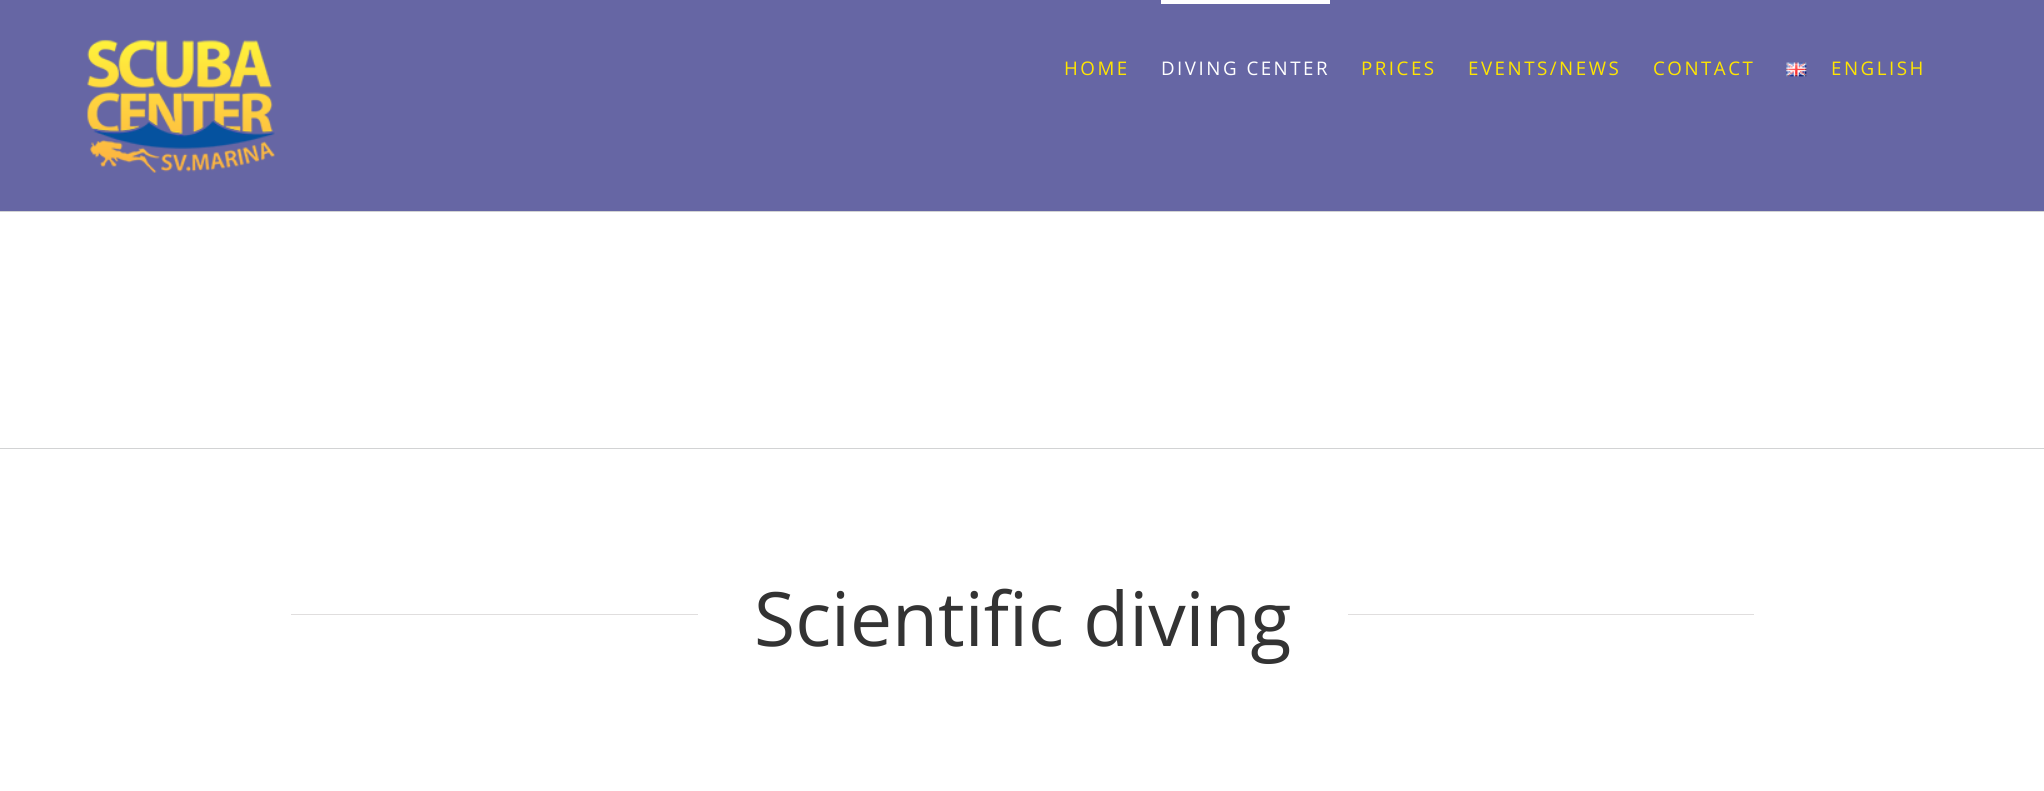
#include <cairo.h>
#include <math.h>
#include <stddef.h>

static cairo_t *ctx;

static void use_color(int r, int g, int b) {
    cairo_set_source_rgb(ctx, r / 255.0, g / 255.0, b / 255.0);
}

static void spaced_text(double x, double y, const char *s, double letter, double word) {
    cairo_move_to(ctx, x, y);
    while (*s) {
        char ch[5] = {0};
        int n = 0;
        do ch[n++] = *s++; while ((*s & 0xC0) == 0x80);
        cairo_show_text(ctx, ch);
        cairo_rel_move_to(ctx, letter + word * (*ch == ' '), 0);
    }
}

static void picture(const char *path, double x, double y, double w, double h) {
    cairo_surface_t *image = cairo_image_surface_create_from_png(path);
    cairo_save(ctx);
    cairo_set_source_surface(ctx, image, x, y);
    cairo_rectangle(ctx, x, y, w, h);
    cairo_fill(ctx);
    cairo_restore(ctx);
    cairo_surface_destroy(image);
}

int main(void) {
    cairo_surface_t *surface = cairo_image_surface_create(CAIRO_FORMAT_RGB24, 2044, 791);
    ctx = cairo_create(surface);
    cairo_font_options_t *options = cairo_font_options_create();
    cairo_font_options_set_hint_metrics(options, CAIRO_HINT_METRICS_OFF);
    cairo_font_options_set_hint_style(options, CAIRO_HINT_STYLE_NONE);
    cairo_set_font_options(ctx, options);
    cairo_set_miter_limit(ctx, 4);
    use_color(255, 255, 255);
    cairo_paint(ctx);
    use_color(102, 102, 164);
    cairo_rectangle(ctx, 0, 0, 2044, 211);
    cairo_fill(ctx);
    picture("img1.png", 87, 39, 188, 134);
    cairo_select_font_face(ctx, "Open Sans", CAIRO_FONT_SLANT_NORMAL, CAIRO_FONT_WEIGHT_NORMAL);
    cairo_set_font_size(ctx, 18.75);
    use_color(255, 229, 0);
    spaced_text(1064, 75, "HOME", 2.5, 0);
    use_color(255, 255, 255);
    cairo_rectangle(ctx, 1161, 0, 169, 4);
    cairo_fill(ctx);
    spaced_text(1161, 75, "DIVING CENTER", 2.5, 0);
    use_color(255, 229, 0);
    spaced_text(1361, 75, "PRICES", 2.5, 0);
    spaced_text(1468, 75, "EVENTS/NEWS", 2.5, 0);
    spaced_text(1653, 75, "CONTACT", 2.5, 0);
    picture("img2.png", 1786, 62, 21, 15);
    spaced_text(1831, 75, "ENGLISH", 2.5, 0);
    use_color(210, 211, 212);
    cairo_rectangle(ctx, 0, 211, 2044, 1);
    cairo_fill(ctx);
    cairo_rectangle(ctx, 0, 448, 2044, 1);
    cairo_fill(ctx);
    use_color(224, 222, 222);
    cairo_rectangle(ctx, 291, 614, 407, 1);
    cairo_fill(ctx);
    cairo_set_font_size(ctx, 75);
    use_color(51, 51, 51);
    cairo_move_to(ctx, 754, 646);
    cairo_show_text(ctx, "Scientific diving");
    use_color(224, 222, 222);
    cairo_rectangle(ctx, 1348, 614, 406, 1);
    cairo_fill(ctx);
    cairo_surface_write_to_png(surface, "result.png");
    cairo_font_options_destroy(options);
    cairo_destroy(ctx);
    cairo_surface_destroy(surface);
    return 0;
}
